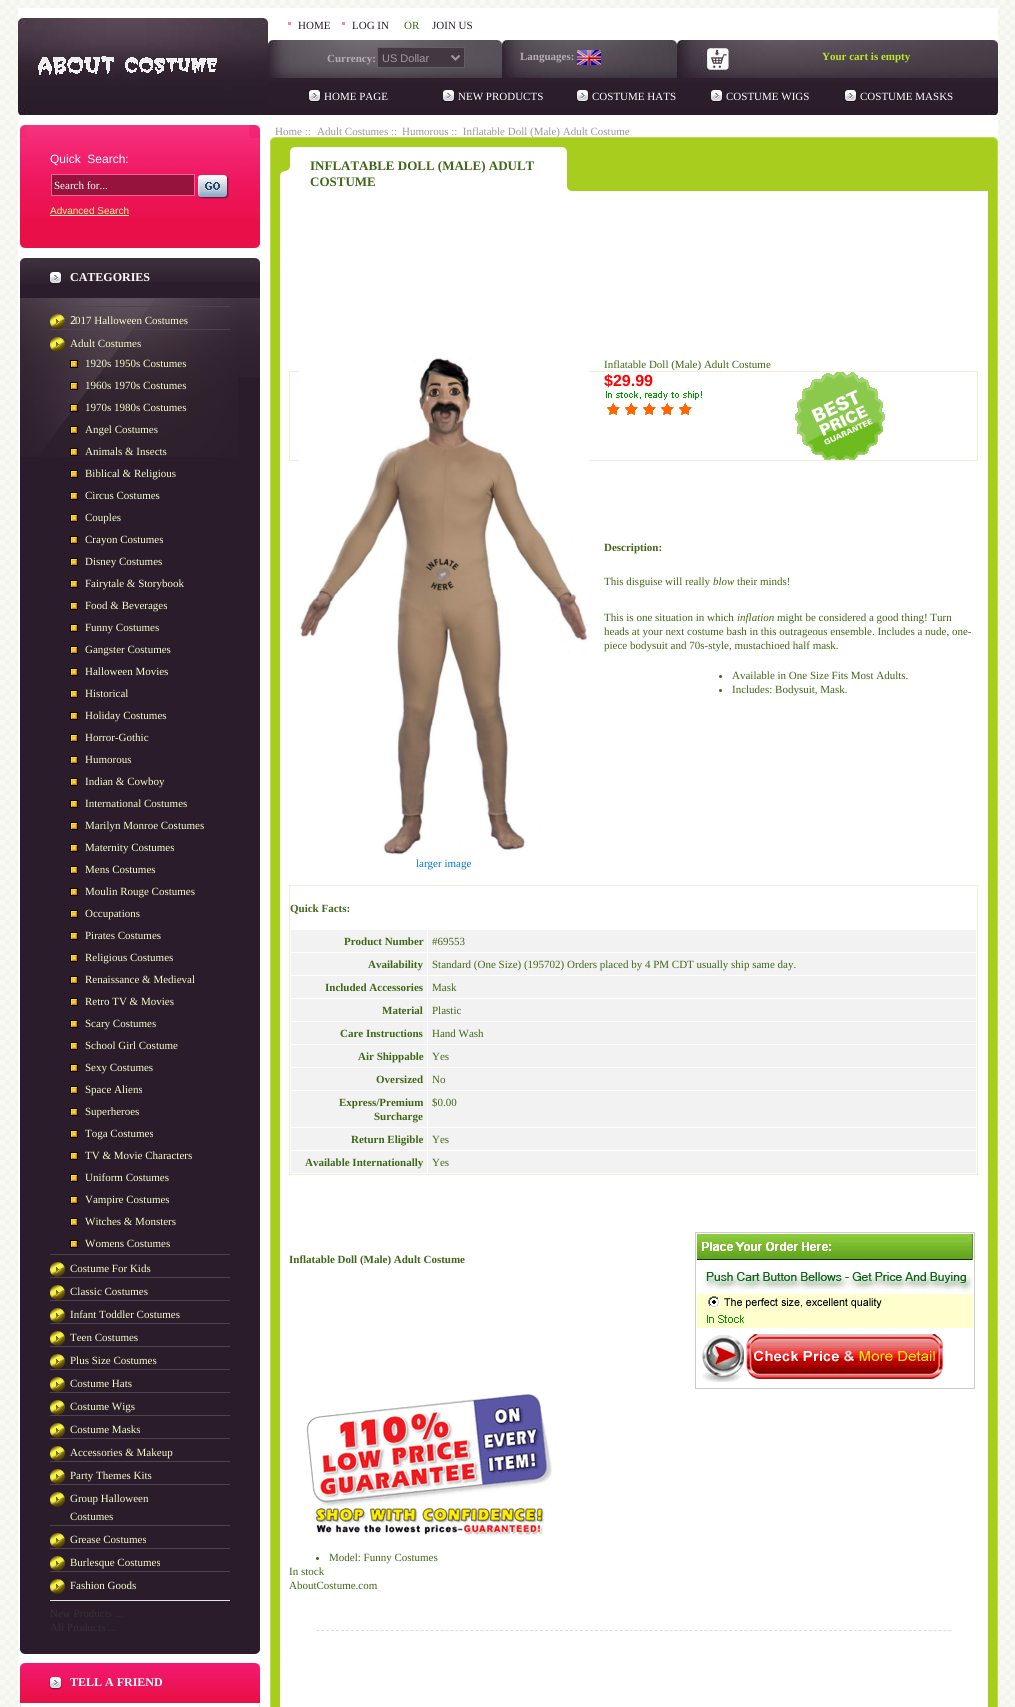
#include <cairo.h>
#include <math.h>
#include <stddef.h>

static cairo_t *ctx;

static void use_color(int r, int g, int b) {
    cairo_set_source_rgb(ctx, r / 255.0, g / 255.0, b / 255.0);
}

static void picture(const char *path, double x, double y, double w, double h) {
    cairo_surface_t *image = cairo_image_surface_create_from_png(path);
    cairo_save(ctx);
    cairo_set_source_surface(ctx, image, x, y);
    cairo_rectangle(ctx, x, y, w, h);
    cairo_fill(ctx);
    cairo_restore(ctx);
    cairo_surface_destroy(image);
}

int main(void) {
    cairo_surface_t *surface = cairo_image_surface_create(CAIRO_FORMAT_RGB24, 1015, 1707);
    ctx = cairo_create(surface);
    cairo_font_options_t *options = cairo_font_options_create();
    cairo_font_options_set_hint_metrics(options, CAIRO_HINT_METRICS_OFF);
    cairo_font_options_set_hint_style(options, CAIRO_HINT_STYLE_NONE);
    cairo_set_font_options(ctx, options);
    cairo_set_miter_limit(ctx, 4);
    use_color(255, 255, 255);
    cairo_paint(ctx);
    picture("img1.png", 0, 0, 1015, 1707);
    use_color(255, 255, 255);
    cairo_rectangle(ctx, 18, 8, 980, 1699);
    cairo_fill(ctx);
    picture("img2.png", 18, 18, 250, 97);
    picture("img3.png", 38, 56, 179, 19);
    use_color(244, 136, 170);
    cairo_rectangle(ctx, 288, 22, 3, 3);
    cairo_fill(ctx);
    cairo_select_font_face(ctx, "Liberation Serif", CAIRO_FONT_SLANT_NORMAL, CAIRO_FONT_WEIGHT_NORMAL);
    cairo_set_font_size(ctx, 11);
    use_color(42, 28, 42);
    cairo_move_to(ctx, 298, 29);
    cairo_show_text(ctx, "HOME");
    use_color(244, 136, 170);
    cairo_rectangle(ctx, 342, 22, 3, 3);
    cairo_fill(ctx);
    use_color(42, 28, 42);
    cairo_move_to(ctx, 352, 29);
    cairo_show_text(ctx, "LOG IN");
    use_color(64, 102, 24);
    cairo_move_to(ctx, 404, 29);
    cairo_show_text(ctx, "OR");
    use_color(42, 28, 42);
    cairo_move_to(ctx, 432, 29);
    cairo_show_text(ctx, "JOIN US");
    picture("img4.png", 268, 40, 234, 38);
    cairo_select_font_face(ctx, "Liberation Serif", CAIRO_FONT_SLANT_NORMAL, CAIRO_FONT_WEIGHT_BOLD);
    use_color(182, 173, 182);
    cairo_move_to(ctx, 327, 62);
    cairo_show_text(ctx, "Currency:");
    use_color(66, 56, 66);
    cairo_rectangle(ctx, 377.5, 47.5, 87, 20);
    cairo_fill_preserve(ctx);
    use_color(103, 91, 103);
    cairo_set_line_width(ctx, 1);
    cairo_stroke(ctx);
    cairo_new_path(ctx);
    cairo_move_to(ctx, 451.5, 55.5);
    cairo_line_to(ctx, 455.5, 59.5);
    cairo_line_to(ctx, 459.5, 55.5);
    use_color(161, 156, 161);
    cairo_set_line_width(ctx, 2);
    cairo_stroke(ctx);
    cairo_select_font_face(ctx, "Liberation Sans", CAIRO_FONT_SLANT_NORMAL, CAIRO_FONT_WEIGHT_NORMAL);
    cairo_move_to(ctx, 382, 62);
    cairo_show_text(ctx, "US Dollar");
    picture("img5.png", 502, 40, 175, 38);
    cairo_select_font_face(ctx, "Liberation Serif", CAIRO_FONT_SLANT_NORMAL, CAIRO_FONT_WEIGHT_BOLD);
    use_color(182, 173, 182);
    cairo_move_to(ctx, 520, 60);
    cairo_show_text(ctx, "Languages:");
    picture("img6.png", 577, 50, 24, 15);
    picture("img7.png", 677, 40, 321, 38);
    use_color(189, 229, 45);
    cairo_move_to(ctx, 822, 60);
    cairo_show_text(ctx, "Your cart is empty");
    picture("img8.png", 268, 78, 730, 37);
    picture("img9.png", 308, 90, 13, 12);
    cairo_select_font_face(ctx, "Liberation Serif", CAIRO_FONT_SLANT_NORMAL, CAIRO_FONT_WEIGHT_NORMAL);
    use_color(255, 255, 255);
    cairo_move_to(ctx, 324, 100);
    cairo_show_text(ctx, "HOME PAGE");
    picture("img9.png", 442, 90, 13, 12);
    cairo_move_to(ctx, 458, 100);
    cairo_show_text(ctx, "NEW PRODUCTS");
    picture("img9.png", 576, 90, 13, 12);
    cairo_move_to(ctx, 592, 100);
    cairo_show_text(ctx, "COSTUME HATS");
    picture("img9.png", 710, 90, 13, 12);
    cairo_move_to(ctx, 726, 100);
    cairo_show_text(ctx, "COSTUME WIGS");
    picture("img9.png", 844, 90, 13, 12);
    cairo_move_to(ctx, 860, 100);
    cairo_show_text(ctx, "COSTUME MASKS");
    use_color(233, 16, 73);
    cairo_rectangle(ctx, 20, 219, 240, 29);
    cairo_fill(ctx);
    picture("img10.png", 20, 125, 240, 94);
    picture("img11.png", 20, 125, 7, 13);
    picture("img12.png", 249, 125, 11, 13);
    picture("img13.png", 20, 243, 5, 5);
    picture("img14.png", 255, 243, 5, 5);
    cairo_select_font_face(ctx, "Liberation Sans", CAIRO_FONT_SLANT_NORMAL, CAIRO_FONT_WEIGHT_NORMAL);
    cairo_set_font_size(ctx, 12);
    use_color(255, 255, 255);
    cairo_move_to(ctx, 50, 163);
    cairo_show_text(ctx, "Quick  Search:");
    use_color(149, 19, 61);
    cairo_rectangle(ctx, 51.5, 174.5, 143, 21);
    cairo_fill_preserve(ctx);
    use_color(243, 98, 144);
    cairo_set_line_width(ctx, 1);
    cairo_stroke(ctx);
    cairo_select_font_face(ctx, "Liberation Serif", CAIRO_FONT_SLANT_NORMAL, CAIRO_FONT_WEIGHT_NORMAL);
    cairo_set_font_size(ctx, 11);
    use_color(255, 255, 255);
    cairo_move_to(ctx, 54, 189);
    cairo_show_text(ctx, "Search for...");
    picture("img15.png", 198, 175, 31, 24);
    cairo_select_font_face(ctx, "Liberation Sans", CAIRO_FONT_SLANT_NORMAL, CAIRO_FONT_WEIGHT_NORMAL);
    cairo_set_font_size(ctx, 10);
    use_color(255, 247, 153);
    cairo_move_to(ctx, 50, 214);
    cairo_show_text(ctx, "Advanced Search");
    cairo_rectangle(ctx, 50, 215, 79, 1);
    cairo_fill(ctx);
    use_color(43, 29, 43);
    cairo_rectangle(ctx, 20, 282, 240, 16);
    cairo_fill(ctx);
    picture("img16.png", 62, 258, 198, 24);
    picture("img17.png", 20, 258, 42, 26);
    picture("img18.png", 255, 258, 5, 5);
    cairo_select_font_face(ctx, "Liberation Serif", CAIRO_FONT_SLANT_NORMAL, CAIRO_FONT_WEIGHT_BOLD);
    cairo_set_font_size(ctx, 12);
    use_color(255, 255, 255);
    cairo_move_to(ctx, 70, 281);
    cairo_show_text(ctx, "CATEGORIES");
    use_color(42, 28, 42);
    cairo_rectangle(ctx, 20, 377, 240, 1277);
    cairo_fill(ctx);
    picture("img19.png", 238, 298, 22, 79);
    picture("img20.png", 20, 298, 218, 159);
    picture("img21.png", 20, 1649, 5, 5);
    picture("img22.png", 255, 1649, 5, 5);
    cairo_select_font_face(ctx, "Noto Sans", CAIRO_FONT_SLANT_NORMAL, CAIRO_FONT_WEIGHT_NORMAL);
    cairo_set_font_size(ctx, 11);
    use_color(243, 255, 202);
    cairo_move_to(ctx, 70, 324);
    cairo_show_text(ctx, "2");
    picture("img23.png", 50, 314, 15, 15);
    use_color(78, 68, 79);
    cairo_rectangle(ctx, 50, 306, 180, 1);
    cairo_fill(ctx);
    cairo_select_font_face(ctx, "Liberation Serif", CAIRO_FONT_SLANT_NORMAL, CAIRO_FONT_WEIGHT_NORMAL);
    use_color(243, 255, 202);
    cairo_move_to(ctx, 75, 324);
    cairo_show_text(ctx, "017 Halloween Costumes");
    picture("img24.png", 50, 337, 15, 15);
    use_color(78, 68, 79);
    cairo_rectangle(ctx, 50, 329, 180, 1);
    cairo_fill(ctx);
    use_color(243, 255, 202);
    cairo_move_to(ctx, 70, 347);
    cairo_show_text(ctx, "Adult Costumes");
    picture("img25.png", 70, 360, 8, 8);
    cairo_move_to(ctx, 85, 367);
    cairo_show_text(ctx, "1920s 1950s Costumes");
    picture("img25.png", 70, 382, 8, 8);
    cairo_move_to(ctx, 85, 389);
    cairo_show_text(ctx, "1960s 1970s Costumes");
    picture("img25.png", 70, 404, 8, 8);
    cairo_move_to(ctx, 85, 411);
    cairo_show_text(ctx, "1970s 1980s Costumes");
    picture("img25.png", 70, 426, 8, 8);
    cairo_move_to(ctx, 85, 433);
    cairo_show_text(ctx, "Angel Costumes");
    picture("img25.png", 70, 448, 8, 8);
    cairo_move_to(ctx, 85, 455);
    cairo_show_text(ctx, "Animals & Insects");
    picture("img25.png", 70, 470, 8, 8);
    cairo_move_to(ctx, 85, 477);
    cairo_show_text(ctx, "Biblical & Religious");
    picture("img25.png", 70, 492, 8, 8);
    cairo_move_to(ctx, 85, 499);
    cairo_show_text(ctx, "Circus Costumes");
    picture("img25.png", 70, 514, 8, 8);
    cairo_move_to(ctx, 85, 521);
    cairo_show_text(ctx, "Couples");
    picture("img25.png", 70, 536, 8, 8);
    cairo_move_to(ctx, 85, 543);
    cairo_show_text(ctx, "Crayon Costumes");
    picture("img25.png", 70, 558, 8, 8);
    cairo_move_to(ctx, 85, 565);
    cairo_show_text(ctx, "Disney Costumes");
    picture("img25.png", 70, 580, 8, 8);
    cairo_move_to(ctx, 85, 587);
    cairo_show_text(ctx, "Fairytale & Storybook");
    picture("img25.png", 70, 602, 8, 8);
    cairo_move_to(ctx, 85, 609);
    cairo_show_text(ctx, "Food & Beverages");
    picture("img25.png", 70, 624, 8, 8);
    cairo_move_to(ctx, 85, 631);
    cairo_show_text(ctx, "Funny Costumes");
    picture("img25.png", 70, 646, 8, 8);
    cairo_move_to(ctx, 85, 653);
    cairo_show_text(ctx, "Gangster Costumes");
    picture("img25.png", 70, 668, 8, 8);
    cairo_move_to(ctx, 85, 675);
    cairo_show_text(ctx, "Halloween Movies");
    picture("img25.png", 70, 690, 8, 8);
    cairo_move_to(ctx, 85, 697);
    cairo_show_text(ctx, "Historical");
    picture("img25.png", 70, 712, 8, 8);
    cairo_move_to(ctx, 85, 719);
    cairo_show_text(ctx, "Holiday Costumes");
    picture("img25.png", 70, 734, 8, 8);
    cairo_move_to(ctx, 85, 741);
    cairo_show_text(ctx, "Horror-Gothic");
    picture("img25.png", 70, 756, 8, 8);
    cairo_move_to(ctx, 85, 763);
    cairo_show_text(ctx, "Humorous");
    picture("img25.png", 70, 778, 8, 8);
    cairo_move_to(ctx, 85, 785);
    cairo_show_text(ctx, "Indian & Cowboy");
    picture("img25.png", 70, 800, 8, 8);
    cairo_move_to(ctx, 85, 807);
    cairo_show_text(ctx, "International Costumes");
    picture("img25.png", 70, 822, 8, 8);
    cairo_move_to(ctx, 85, 829);
    cairo_show_text(ctx, "Marilyn Monroe Costumes");
    picture("img25.png", 70, 844, 8, 8);
    cairo_move_to(ctx, 85, 851);
    cairo_show_text(ctx, "Maternity Costumes");
    picture("img25.png", 70, 866, 8, 8);
    cairo_move_to(ctx, 85, 873);
    cairo_show_text(ctx, "Mens Costumes");
    picture("img25.png", 70, 888, 8, 8);
    cairo_move_to(ctx, 85, 895);
    cairo_show_text(ctx, "Moulin Rouge Costumes");
    picture("img25.png", 70, 910, 8, 8);
    cairo_move_to(ctx, 85, 917);
    cairo_show_text(ctx, "Occupations");
    picture("img25.png", 70, 932, 8, 8);
    cairo_move_to(ctx, 85, 939);
    cairo_show_text(ctx, "Pirates Costumes");
    picture("img25.png", 70, 954, 8, 8);
    cairo_move_to(ctx, 85, 961);
    cairo_show_text(ctx, "Religious Costumes");
    picture("img25.png", 70, 976, 8, 8);
    cairo_move_to(ctx, 85, 983);
    cairo_show_text(ctx, "Renaissance & Medieval");
    picture("img25.png", 70, 998, 8, 8);
    cairo_move_to(ctx, 85, 1005);
    cairo_show_text(ctx, "Retro TV & Movies");
    picture("img25.png", 70, 1020, 8, 8);
    cairo_move_to(ctx, 85, 1027);
    cairo_show_text(ctx, "Scary Costumes");
    picture("img25.png", 70, 1042, 8, 8);
    cairo_move_to(ctx, 85, 1049);
    cairo_show_text(ctx, "School Girl Costume");
    picture("img25.png", 70, 1064, 8, 8);
    cairo_move_to(ctx, 85, 1071);
    cairo_show_text(ctx, "Sexy Costumes");
    picture("img25.png", 70, 1086, 8, 8);
    cairo_move_to(ctx, 85, 1093);
    cairo_show_text(ctx, "Space Aliens");
    picture("img25.png", 70, 1108, 8, 8);
    cairo_move_to(ctx, 85, 1115);
    cairo_show_text(ctx, "Superheroes");
    picture("img25.png", 70, 1130, 8, 8);
    cairo_move_to(ctx, 85, 1137);
    cairo_show_text(ctx, "Toga Costumes");
    picture("img25.png", 70, 1152, 8, 8);
    cairo_move_to(ctx, 85, 1159);
    cairo_show_text(ctx, "TV & Movie Characters");
    picture("img25.png", 70, 1174, 8, 8);
    cairo_move_to(ctx, 85, 1181);
    cairo_show_text(ctx, "Uniform Costumes");
    picture("img25.png", 70, 1196, 8, 8);
    cairo_move_to(ctx, 85, 1203);
    cairo_show_text(ctx, "Vampire Costumes");
    picture("img25.png", 70, 1218, 8, 8);
    cairo_move_to(ctx, 85, 1225);
    cairo_show_text(ctx, "Witches & Monsters");
    picture("img25.png", 70, 1240, 8, 8);
    cairo_move_to(ctx, 85, 1247);
    cairo_show_text(ctx, "Womens Costumes");
    picture("img26.png", 50, 1262, 15, 15);
    use_color(78, 68, 79);
    cairo_rectangle(ctx, 50, 1254, 180, 1);
    cairo_fill(ctx);
    use_color(243, 255, 202);
    cairo_move_to(ctx, 70, 1272);
    cairo_show_text(ctx, "Costume For Kids");
    picture("img26.png", 50, 1285, 15, 15);
    use_color(78, 68, 79);
    cairo_rectangle(ctx, 50, 1277, 180, 1);
    cairo_fill(ctx);
    use_color(243, 255, 202);
    cairo_move_to(ctx, 70, 1295);
    cairo_show_text(ctx, "Classic Costumes");
    picture("img26.png", 50, 1308, 15, 15);
    use_color(78, 68, 79);
    cairo_rectangle(ctx, 50, 1300, 180, 1);
    cairo_fill(ctx);
    use_color(243, 255, 202);
    cairo_move_to(ctx, 70, 1318);
    cairo_show_text(ctx, "Infant Toddler Costumes");
    picture("img26.png", 50, 1331, 15, 15);
    use_color(78, 68, 79);
    cairo_rectangle(ctx, 50, 1323, 180, 1);
    cairo_fill(ctx);
    use_color(243, 255, 202);
    cairo_move_to(ctx, 70, 1341);
    cairo_show_text(ctx, "Teen Costumes");
    picture("img26.png", 50, 1354, 15, 15);
    use_color(78, 68, 79);
    cairo_rectangle(ctx, 50, 1346, 180, 1);
    cairo_fill(ctx);
    use_color(243, 255, 202);
    cairo_move_to(ctx, 70, 1364);
    cairo_show_text(ctx, "Plus Size Costumes");
    picture("img26.png", 50, 1377, 15, 15);
    use_color(78, 68, 79);
    cairo_rectangle(ctx, 50, 1369, 180, 1);
    cairo_fill(ctx);
    use_color(243, 255, 202);
    cairo_move_to(ctx, 70, 1387);
    cairo_show_text(ctx, "Costume Hats");
    picture("img26.png", 50, 1400, 15, 15);
    use_color(78, 68, 79);
    cairo_rectangle(ctx, 50, 1392, 180, 1);
    cairo_fill(ctx);
    use_color(243, 255, 202);
    cairo_move_to(ctx, 70, 1410);
    cairo_show_text(ctx, "Costume Wigs");
    picture("img26.png", 50, 1423, 15, 15);
    use_color(78, 68, 79);
    cairo_rectangle(ctx, 50, 1415, 180, 1);
    cairo_fill(ctx);
    use_color(243, 255, 202);
    cairo_move_to(ctx, 70, 1433);
    cairo_show_text(ctx, "Costume Masks");
    picture("img26.png", 50, 1446, 15, 15);
    use_color(78, 68, 79);
    cairo_rectangle(ctx, 50, 1438, 180, 1);
    cairo_fill(ctx);
    use_color(243, 255, 202);
    cairo_move_to(ctx, 70, 1456);
    cairo_show_text(ctx, "Accessories & Makeup");
    picture("img26.png", 50, 1469, 15, 15);
    use_color(78, 68, 79);
    cairo_rectangle(ctx, 50, 1461, 180, 1);
    cairo_fill(ctx);
    use_color(243, 255, 202);
    cairo_move_to(ctx, 70, 1479);
    cairo_show_text(ctx, "Party Themes Kits");
    picture("img26.png", 50, 1492, 15, 15);
    use_color(78, 68, 79);
    cairo_rectangle(ctx, 50, 1484, 180, 1);
    cairo_fill(ctx);
    use_color(243, 255, 202);
    cairo_move_to(ctx, 70, 1502);
    cairo_show_text(ctx, "Group Halloween");
    cairo_move_to(ctx, 70, 1520);
    cairo_show_text(ctx, "Costumes");
    picture("img26.png", 50, 1533, 15, 15);
    use_color(78, 68, 79);
    cairo_rectangle(ctx, 50, 1525, 180, 1);
    cairo_fill(ctx);
    use_color(243, 255, 202);
    cairo_move_to(ctx, 70, 1543);
    cairo_show_text(ctx, "Grease Costumes");
    picture("img26.png", 50, 1556, 15, 15);
    use_color(78, 68, 79);
    cairo_rectangle(ctx, 50, 1548, 180, 1);
    cairo_fill(ctx);
    use_color(243, 255, 202);
    cairo_move_to(ctx, 70, 1566);
    cairo_show_text(ctx, "Burlesque Costumes");
    picture("img26.png", 50, 1579, 15, 15);
    use_color(78, 68, 79);
    cairo_rectangle(ctx, 50, 1571, 180, 1);
    cairo_fill(ctx);
    use_color(243, 255, 202);
    cairo_move_to(ctx, 70, 1589);
    cairo_show_text(ctx, "Fashion Goods");
    use_color(228, 228, 228);
    cairo_rectangle(ctx, 50, 1600, 180, 1);
    cairo_fill(ctx);
    use_color(51, 51, 51);
    cairo_move_to(ctx, 50, 1617);
    cairo_show_text(ctx, "New Products ...");
    cairo_move_to(ctx, 50, 1631);
    cairo_show_text(ctx, "All Products ...");
    use_color(233, 16, 71);
    cairo_rectangle(ctx, 20, 1697, 240, 6);
    cairo_fill(ctx);
    picture("img27.png", 20, 1663, 240, 34);
    picture("img28.png", 20, 1663, 42, 27);
    picture("img29.png", 255, 1663, 5, 5);
    cairo_select_font_face(ctx, "Liberation Serif", CAIRO_FONT_SLANT_NORMAL, CAIRO_FONT_WEIGHT_BOLD);
    cairo_set_font_size(ctx, 12);
    use_color(255, 255, 255);
    cairo_move_to(ctx, 70, 1686);
    cairo_show_text(ctx, "TELL A FRIEND");
    use_color(224, 227, 215);
    cairo_rectangle(ctx, 20, 1703, 1, 4);
    cairo_fill(ctx);
    cairo_rectangle(ctx, 259, 1703, 1, 4);
    cairo_fill(ctx);
    cairo_select_font_face(ctx, "Liberation Serif", CAIRO_FONT_SLANT_NORMAL, CAIRO_FONT_WEIGHT_NORMAL);
    cairo_set_font_size(ctx, 11);
    use_color(153, 153, 153);
    cairo_move_to(ctx, 275, 135);
    cairo_show_text(ctx, "Home ::");
    cairo_move_to(ctx, 317, 135);
    cairo_show_text(ctx, "Adult Costumes ::");
    use_color(195, 220, 78);
    cairo_rectangle(ctx, 270, 137, 728, 1);
    cairo_fill(ctx);
    use_color(153, 153, 153);
    cairo_move_to(ctx, 402, 135);
    cairo_show_text(ctx, "Humorous ::  Inflatable Doll (Male) Adult Costume");
    use_color(167, 206, 31);
    cairo_rectangle(ctx, 271, 138, 726, 1569);
    cairo_fill(ctx);
    use_color(195, 220, 78);
    cairo_rectangle(ctx, 270, 138, 1, 1569);
    cairo_fill(ctx);
    cairo_rectangle(ctx, 997, 138, 1, 1569);
    cairo_fill(ctx);
    picture("img30.png", 270, 137, 5, 5);
    picture("img31.png", 993, 137, 5, 5);
    use_color(255, 255, 255);
    cairo_rectangle(ctx, 280, 147, 287, 44);
    cairo_fill(ctx);
    picture("img32.png", 280, 147, 15, 29);
    picture("img33.png", 562, 147, 5, 5);
    picture("img34.png", 567, 186, 5, 5);
    cairo_select_font_face(ctx, "Liberation Serif", CAIRO_FONT_SLANT_NORMAL, CAIRO_FONT_WEIGHT_BOLD);
    cairo_set_font_size(ctx, 13);
    use_color(64, 102, 24);
    cairo_move_to(ctx, 310, 170);
    cairo_show_text(ctx, "INFLATABLE DOLL (MALE) ADULT");
    cairo_move_to(ctx, 310, 186);
    cairo_show_text(ctx, "COSTUME");
    use_color(255, 255, 255);
    cairo_rectangle(ctx, 280, 191, 708, 1516);
    cairo_fill(ctx);
    cairo_select_font_face(ctx, "Liberation Serif", CAIRO_FONT_SLANT_NORMAL, CAIRO_FONT_WEIGHT_NORMAL);
    cairo_set_font_size(ctx, 11);
    use_color(64, 102, 24);
    cairo_move_to(ctx, 604, 368);
    cairo_show_text(ctx, "Inflatable Doll (Male) Adult Costume");
    picture("img35.png", 795, 372, 90, 88);
    cairo_rectangle(ctx, 289.5, 371.5, 688, 89);
    use_color(243, 236, 217);
    cairo_stroke(ctx);
    cairo_select_font_face(ctx, "Liberation Sans", CAIRO_FONT_SLANT_NORMAL, CAIRO_FONT_WEIGHT_BOLD);
    cairo_set_font_size(ctx, 16);
    use_color(255, 0, 0);
    cairo_move_to(ctx, 604, 386);
    cairo_show_text(ctx, "$29.99");
    picture("img36.png", 606, 391, 96, 24);
    cairo_select_font_face(ctx, "Liberation Serif", CAIRO_FONT_SLANT_NORMAL, CAIRO_FONT_WEIGHT_BOLD);
    cairo_set_font_size(ctx, 11);
    use_color(64, 102, 24);
    cairo_move_to(ctx, 604, 551);
    cairo_show_text(ctx, "Description:");
    cairo_select_font_face(ctx, "Liberation Serif", CAIRO_FONT_SLANT_NORMAL, CAIRO_FONT_WEIGHT_NORMAL);
    cairo_move_to(ctx, 604, 585);
    cairo_show_text(ctx, "This disguise will really");
    cairo_select_font_face(ctx, "Liberation Serif", CAIRO_FONT_SLANT_ITALIC, CAIRO_FONT_WEIGHT_NORMAL);
    cairo_move_to(ctx, 713, 585);
    cairo_show_text(ctx, "blow");
    cairo_select_font_face(ctx, "Liberation Serif", CAIRO_FONT_SLANT_NORMAL, CAIRO_FONT_WEIGHT_NORMAL);
    cairo_move_to(ctx, 737, 585);
    cairo_show_text(ctx, "their minds!");
    cairo_move_to(ctx, 604, 621);
    cairo_show_text(ctx, "This is one situation in which");
    cairo_select_font_face(ctx, "Liberation Serif", CAIRO_FONT_SLANT_ITALIC, CAIRO_FONT_WEIGHT_NORMAL);
    cairo_move_to(ctx, 737, 621);
    cairo_show_text(ctx, "inflation");
    cairo_select_font_face(ctx, "Liberation Serif", CAIRO_FONT_SLANT_NORMAL, CAIRO_FONT_WEIGHT_NORMAL);
    cairo_move_to(ctx, 777, 621);
    cairo_show_text(ctx, "might be considered a good thing! Turn");
    cairo_move_to(ctx, 604, 635);
    cairo_show_text(ctx, "heads at your next costume bash in this outrageous ensemble. Includes a nude, one-");
    cairo_move_to(ctx, 604, 649);
    cairo_show_text(ctx, "piece bodysuit and 70s-style, mustachioed half mask.");
    cairo_new_path(ctx);
    cairo_arc(ctx, 720.5, 676.5, 1.5, 0, 2 * M_PI);
    cairo_fill(ctx);
    cairo_move_to(ctx, 732, 679);
    cairo_show_text(ctx, "Available in One Size Fits Most Adults.");
    cairo_new_path(ctx);
    cairo_arc(ctx, 720.5, 690.5, 1.5, 0, 2 * M_PI);
    cairo_fill(ctx);
    cairo_move_to(ctx, 732, 693);
    cairo_show_text(ctx, "Includes: Bodysuit, Mask.");
    cairo_rectangle(ctx, 289.5, 885.5, 688, 289);
    use_color(243, 236, 217);
    cairo_stroke(ctx);
    cairo_select_font_face(ctx, "Liberation Serif", CAIRO_FONT_SLANT_NORMAL, CAIRO_FONT_WEIGHT_BOLD);
    use_color(64, 102, 24);
    cairo_move_to(ctx, 290, 912);
    cairo_show_text(ctx, "Quick Facts:");
    use_color(242, 242, 242);
    cairo_rectangle(ctx, 291, 930, 136, 22);
    cairo_fill(ctx);
    use_color(64, 102, 24);
    cairo_move_to(ctx, 344, 945);
    cairo_show_text(ctx, "Product Number");
    use_color(242, 242, 242);
    cairo_rectangle(ctx, 428, 930, 548, 22);
    cairo_fill(ctx);
    cairo_select_font_face(ctx, "Liberation Serif", CAIRO_FONT_SLANT_NORMAL, CAIRO_FONT_WEIGHT_NORMAL);
    use_color(64, 102, 24);
    cairo_move_to(ctx, 432, 945);
    cairo_show_text(ctx, "#69553");
    use_color(242, 242, 242);
    cairo_rectangle(ctx, 291, 953, 136, 22);
    cairo_fill(ctx);
    cairo_select_font_face(ctx, "Liberation Serif", CAIRO_FONT_SLANT_NORMAL, CAIRO_FONT_WEIGHT_BOLD);
    use_color(64, 102, 24);
    cairo_move_to(ctx, 368, 968);
    cairo_show_text(ctx, "Availability");
    use_color(242, 242, 242);
    cairo_rectangle(ctx, 428, 953, 548, 22);
    cairo_fill(ctx);
    cairo_select_font_face(ctx, "Liberation Serif", CAIRO_FONT_SLANT_NORMAL, CAIRO_FONT_WEIGHT_NORMAL);
    use_color(64, 102, 24);
    cairo_move_to(ctx, 432, 968);
    cairo_show_text(ctx, "Standard (One Size) (195702) Orders placed by 4 PM CDT usually ship same day.");
    use_color(242, 242, 242);
    cairo_rectangle(ctx, 291, 976, 136, 22);
    cairo_fill(ctx);
    cairo_select_font_face(ctx, "Liberation Serif", CAIRO_FONT_SLANT_NORMAL, CAIRO_FONT_WEIGHT_BOLD);
    use_color(64, 102, 24);
    cairo_move_to(ctx, 325, 991);
    cairo_show_text(ctx, "Included Accessories");
    use_color(242, 242, 242);
    cairo_rectangle(ctx, 428, 976, 548, 22);
    cairo_fill(ctx);
    cairo_select_font_face(ctx, "Liberation Serif", CAIRO_FONT_SLANT_NORMAL, CAIRO_FONT_WEIGHT_NORMAL);
    use_color(64, 102, 24);
    cairo_move_to(ctx, 432, 991);
    cairo_show_text(ctx, "Mask");
    use_color(242, 242, 242);
    cairo_rectangle(ctx, 291, 999, 136, 22);
    cairo_fill(ctx);
    cairo_select_font_face(ctx, "Liberation Serif", CAIRO_FONT_SLANT_NORMAL, CAIRO_FONT_WEIGHT_BOLD);
    use_color(64, 102, 24);
    cairo_move_to(ctx, 382, 1014);
    cairo_show_text(ctx, "Material");
    use_color(242, 242, 242);
    cairo_rectangle(ctx, 428, 999, 548, 22);
    cairo_fill(ctx);
    cairo_select_font_face(ctx, "Liberation Serif", CAIRO_FONT_SLANT_NORMAL, CAIRO_FONT_WEIGHT_NORMAL);
    use_color(64, 102, 24);
    cairo_move_to(ctx, 432, 1014);
    cairo_show_text(ctx, "Plastic");
    use_color(242, 242, 242);
    cairo_rectangle(ctx, 291, 1022, 136, 22);
    cairo_fill(ctx);
    cairo_select_font_face(ctx, "Liberation Serif", CAIRO_FONT_SLANT_NORMAL, CAIRO_FONT_WEIGHT_BOLD);
    use_color(64, 102, 24);
    cairo_move_to(ctx, 340, 1037);
    cairo_show_text(ctx, "Care Instructions");
    use_color(242, 242, 242);
    cairo_rectangle(ctx, 428, 1022, 548, 22);
    cairo_fill(ctx);
    cairo_select_font_face(ctx, "Liberation Serif", CAIRO_FONT_SLANT_NORMAL, CAIRO_FONT_WEIGHT_NORMAL);
    use_color(64, 102, 24);
    cairo_move_to(ctx, 432, 1037);
    cairo_show_text(ctx, "Hand Wash");
    use_color(242, 242, 242);
    cairo_rectangle(ctx, 291, 1045, 136, 22);
    cairo_fill(ctx);
    cairo_select_font_face(ctx, "Liberation Serif", CAIRO_FONT_SLANT_NORMAL, CAIRO_FONT_WEIGHT_BOLD);
    use_color(64, 102, 24);
    cairo_move_to(ctx, 358, 1060);
    cairo_show_text(ctx, "Air Shippable");
    use_color(242, 242, 242);
    cairo_rectangle(ctx, 428, 1045, 548, 22);
    cairo_fill(ctx);
    cairo_select_font_face(ctx, "Liberation Serif", CAIRO_FONT_SLANT_NORMAL, CAIRO_FONT_WEIGHT_NORMAL);
    use_color(64, 102, 24);
    cairo_move_to(ctx, 432, 1060);
    cairo_show_text(ctx, "Yes");
    use_color(242, 242, 242);
    cairo_rectangle(ctx, 291, 1068, 136, 22);
    cairo_fill(ctx);
    cairo_select_font_face(ctx, "Liberation Serif", CAIRO_FONT_SLANT_NORMAL, CAIRO_FONT_WEIGHT_BOLD);
    use_color(64, 102, 24);
    cairo_move_to(ctx, 376, 1083);
    cairo_show_text(ctx, "Oversized");
    use_color(242, 242, 242);
    cairo_rectangle(ctx, 428, 1068, 548, 22);
    cairo_fill(ctx);
    cairo_select_font_face(ctx, "Liberation Serif", CAIRO_FONT_SLANT_NORMAL, CAIRO_FONT_WEIGHT_NORMAL);
    use_color(64, 102, 24);
    cairo_move_to(ctx, 432, 1083);
    cairo_show_text(ctx, "No");
    use_color(242, 242, 242);
    cairo_rectangle(ctx, 291, 1091, 136, 36);
    cairo_fill(ctx);
    cairo_select_font_face(ctx, "Liberation Serif", CAIRO_FONT_SLANT_NORMAL, CAIRO_FONT_WEIGHT_BOLD);
    use_color(64, 102, 24);
    cairo_move_to(ctx, 339, 1106);
    cairo_show_text(ctx, "Express/Premium");
    cairo_move_to(ctx, 374, 1120);
    cairo_show_text(ctx, "Surcharge");
    use_color(242, 242, 242);
    cairo_rectangle(ctx, 428, 1091, 548, 36);
    cairo_fill(ctx);
    cairo_select_font_face(ctx, "Liberation Serif", CAIRO_FONT_SLANT_NORMAL, CAIRO_FONT_WEIGHT_NORMAL);
    use_color(64, 102, 24);
    cairo_move_to(ctx, 432, 1106);
    cairo_show_text(ctx, "$0.00");
    use_color(242, 242, 242);
    cairo_rectangle(ctx, 291, 1128, 136, 22);
    cairo_fill(ctx);
    cairo_select_font_face(ctx, "Liberation Serif", CAIRO_FONT_SLANT_NORMAL, CAIRO_FONT_WEIGHT_BOLD);
    use_color(64, 102, 24);
    cairo_move_to(ctx, 351, 1143);
    cairo_show_text(ctx, "Return Eligible");
    use_color(242, 242, 242);
    cairo_rectangle(ctx, 428, 1128, 548, 22);
    cairo_fill(ctx);
    cairo_select_font_face(ctx, "Liberation Serif", CAIRO_FONT_SLANT_NORMAL, CAIRO_FONT_WEIGHT_NORMAL);
    use_color(64, 102, 24);
    cairo_move_to(ctx, 432, 1143);
    cairo_show_text(ctx, "Yes");
    use_color(242, 242, 242);
    cairo_rectangle(ctx, 291, 1151, 136, 22);
    cairo_fill(ctx);
    cairo_select_font_face(ctx, "Liberation Serif", CAIRO_FONT_SLANT_NORMAL, CAIRO_FONT_WEIGHT_BOLD);
    use_color(64, 102, 24);
    cairo_move_to(ctx, 305, 1166);
    cairo_show_text(ctx, "Available Internationally");
    use_color(242, 242, 242);
    cairo_rectangle(ctx, 428, 1151, 548, 22);
    cairo_fill(ctx);
    cairo_select_font_face(ctx, "Liberation Serif", CAIRO_FONT_SLANT_NORMAL, CAIRO_FONT_WEIGHT_NORMAL);
    use_color(64, 102, 24);
    cairo_move_to(ctx, 432, 1166);
    cairo_show_text(ctx, "Yes");
    picture("img37.png", 694, 1230, 281, 159);
    cairo_select_font_face(ctx, "Liberation Serif", CAIRO_FONT_SLANT_NORMAL, CAIRO_FONT_WEIGHT_BOLD);
    cairo_move_to(ctx, 289, 1263);
    cairo_show_text(ctx, "Inflatable Doll (Male) Adult Costume");
    picture("img38.png", 299, 357, 290, 498);
    cairo_select_font_face(ctx, "Liberation Serif", CAIRO_FONT_SLANT_NORMAL, CAIRO_FONT_WEIGHT_NORMAL);
    use_color(0, 117, 226);
    cairo_move_to(ctx, 416, 867);
    cairo_show_text(ctx, "larger image");
    picture("img39.png", 306, 1394, 246, 141);
    use_color(64, 102, 24);
    cairo_arc(ctx, 317.5, 1558.5, 1.5, 0, 2 * M_PI);
    cairo_fill(ctx);
    cairo_move_to(ctx, 329, 1561);
    cairo_show_text(ctx, "Model: Funny Costumes");
    cairo_move_to(ctx, 289, 1575);
    cairo_show_text(ctx, "In stock");
    cairo_move_to(ctx, 289, 1589);
    cairo_show_text(ctx, "AboutCostume.com");
    cairo_new_path(ctx);
    cairo_move_to(ctx, 316, 1630.5);
    cairo_line_to(ctx, 952, 1630.5);
    use_color(221, 221, 221);
    cairo_set_dash(ctx, (double[]){3, 1.98}, 2, 0);
    cairo_stroke(ctx);
    cairo_surface_write_to_png(surface, "result.png");
    cairo_font_options_destroy(options);
    cairo_destroy(ctx);
    cairo_surface_destroy(surface);
    return 0;
}
